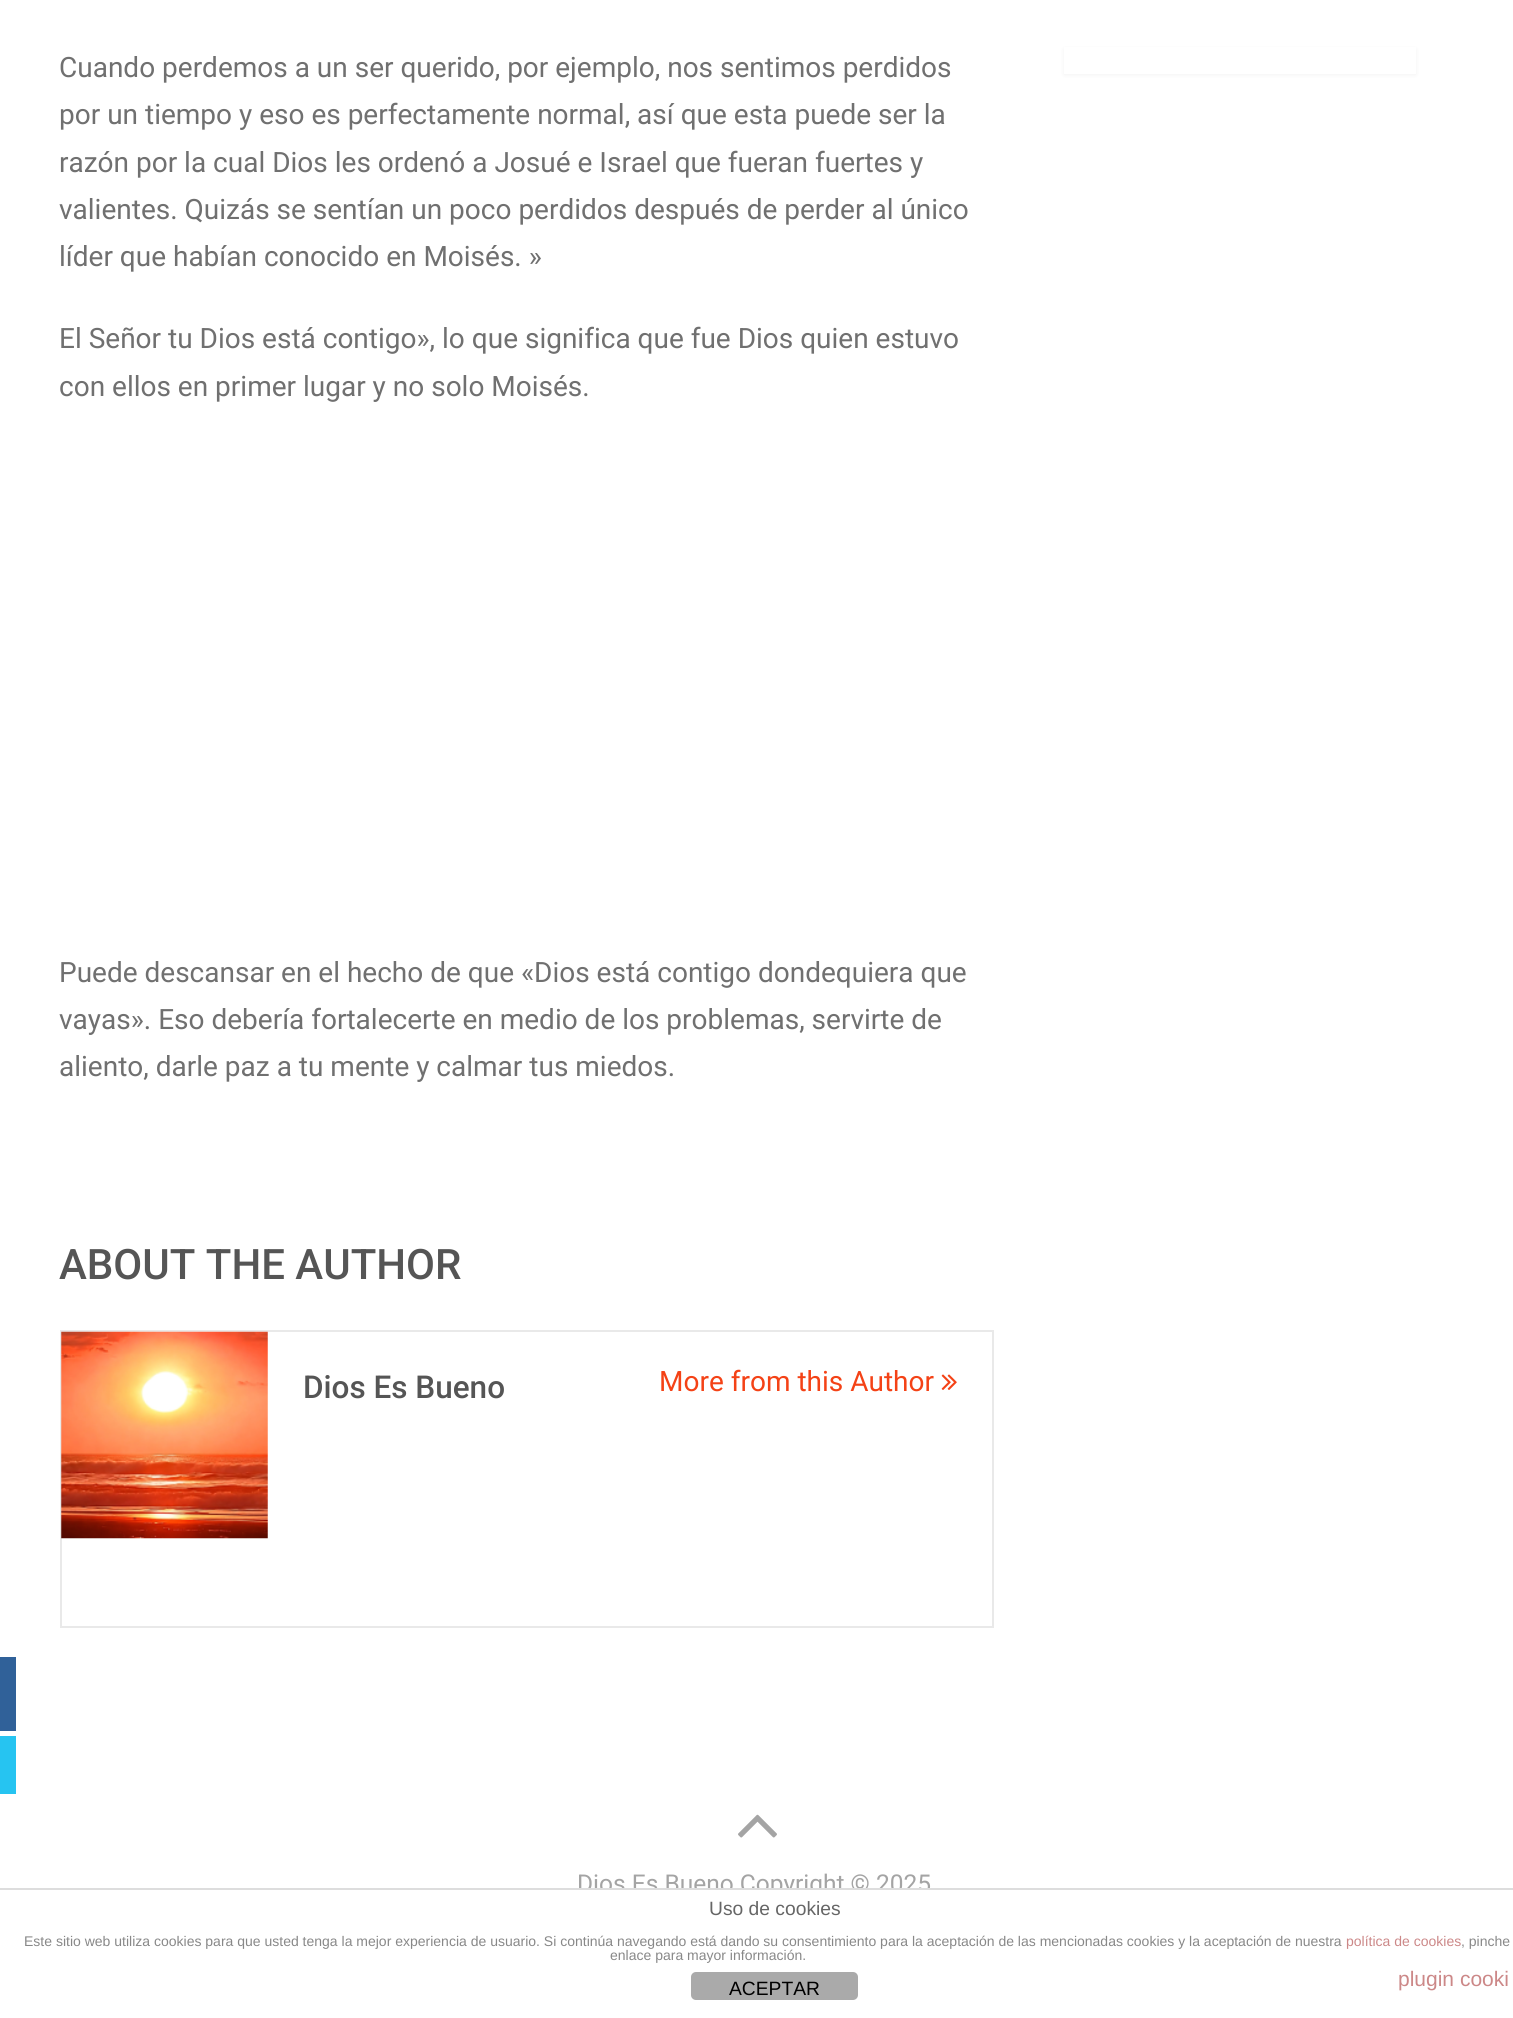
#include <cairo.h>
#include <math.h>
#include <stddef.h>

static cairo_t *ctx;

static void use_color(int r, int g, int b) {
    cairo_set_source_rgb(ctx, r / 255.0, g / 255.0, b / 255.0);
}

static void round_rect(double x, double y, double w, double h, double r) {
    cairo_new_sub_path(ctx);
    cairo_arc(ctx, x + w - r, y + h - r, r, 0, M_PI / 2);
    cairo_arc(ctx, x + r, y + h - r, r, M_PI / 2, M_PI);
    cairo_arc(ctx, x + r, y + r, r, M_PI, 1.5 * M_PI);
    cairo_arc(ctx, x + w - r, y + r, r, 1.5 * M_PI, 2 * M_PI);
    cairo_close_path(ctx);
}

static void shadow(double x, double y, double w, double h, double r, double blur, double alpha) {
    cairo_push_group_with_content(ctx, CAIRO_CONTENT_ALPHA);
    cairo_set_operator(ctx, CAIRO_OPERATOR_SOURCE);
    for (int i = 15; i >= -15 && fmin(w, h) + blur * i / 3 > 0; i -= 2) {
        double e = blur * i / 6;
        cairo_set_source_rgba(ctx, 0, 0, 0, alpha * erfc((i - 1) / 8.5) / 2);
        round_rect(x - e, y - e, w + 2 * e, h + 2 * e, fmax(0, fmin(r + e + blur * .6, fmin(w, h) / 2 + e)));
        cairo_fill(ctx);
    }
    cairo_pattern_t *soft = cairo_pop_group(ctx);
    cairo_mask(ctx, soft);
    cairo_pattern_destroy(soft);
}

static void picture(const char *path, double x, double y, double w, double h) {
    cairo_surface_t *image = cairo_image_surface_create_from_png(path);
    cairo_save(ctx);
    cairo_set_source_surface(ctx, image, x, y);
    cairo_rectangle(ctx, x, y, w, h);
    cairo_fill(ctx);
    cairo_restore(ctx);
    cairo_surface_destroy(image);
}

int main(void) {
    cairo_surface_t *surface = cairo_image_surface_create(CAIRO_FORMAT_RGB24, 1513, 2018);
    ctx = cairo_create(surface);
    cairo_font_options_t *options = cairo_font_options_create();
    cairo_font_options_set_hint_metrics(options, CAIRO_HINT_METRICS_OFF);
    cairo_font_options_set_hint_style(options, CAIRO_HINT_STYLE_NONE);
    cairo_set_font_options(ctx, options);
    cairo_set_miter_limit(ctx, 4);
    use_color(255, 255, 255);
    cairo_paint(ctx);
    cairo_select_font_face(ctx, "Roboto", CAIRO_FONT_SLANT_NORMAL, CAIRO_FONT_WEIGHT_NORMAL);
    cairo_set_font_size(ctx, 28);
    use_color(112, 112, 112);
    cairo_move_to(ctx, 59, 77);
    cairo_show_text(ctx, "Cuando perdemos a un ser querido, por ejemplo, nos sentimos perdidos");
    cairo_move_to(ctx, 59, 124);
    cairo_show_text(ctx, "por un tiempo y eso es perfectamente normal, así que esta puede ser la");
    cairo_move_to(ctx, 59, 172);
    cairo_show_text(ctx, "razón por la cual Dios les ordenó a Josué e Israel que fueran fuertes y");
    cairo_move_to(ctx, 59, 219);
    cairo_show_text(ctx, "valientes. Quizás se sentían un poco perdidos después de perder al único");
    cairo_move_to(ctx, 59, 266);
    cairo_show_text(ctx, "líder que habían conocido en Moisés. »");
    cairo_move_to(ctx, 59, 348);
    cairo_show_text(ctx, "El Señor tu Dios está contigo», lo que significa que fue Dios quien estuvo");
    cairo_move_to(ctx, 59, 396);
    cairo_show_text(ctx, "con ellos en primer lugar y no solo Moisés.");
    cairo_move_to(ctx, 59, 982);
    cairo_show_text(ctx, "Puede descansar en el hecho de que «Dios está contigo dondequiera que");
    cairo_move_to(ctx, 59, 1029);
    cairo_show_text(ctx, "vayas». Eso debería fortalecerte en medio de los problemas, servirte de");
    cairo_move_to(ctx, 59, 1076);
    cairo_show_text(ctx, "aliento, darle paz a tu mente y calmar tus miedos.");
    use_color(48, 97, 153);
    cairo_rectangle(ctx, 0, 1657, 16, 74);
    cairo_fill(ctx);
    use_color(38, 196, 241);
    cairo_rectangle(ctx, 0, 1736, 16, 58);
    cairo_fill(ctx);
    cairo_select_font_face(ctx, "Roboto Medium", CAIRO_FONT_SLANT_NORMAL, CAIRO_FONT_WEIGHT_NORMAL);
    cairo_set_font_size(ctx, 42);
    use_color(85, 85, 85);
    cairo_move_to(ctx, 59, 1279);
    cairo_show_text(ctx, "ABOUT THE AUTHOR");
    cairo_rectangle(ctx, 61, 1331, 932, 296);
    use_color(233, 233, 233);
    cairo_stroke(ctx);
    picture("img1.png", 61, 1331, 207, 208);
    cairo_set_font_size(ctx, 31.5);
    use_color(85, 85, 85);
    cairo_move_to(ctx, 303, 1398);
    cairo_show_text(ctx, "Dios Es Bueno");
    cairo_select_font_face(ctx, "Roboto", CAIRO_FONT_SLANT_NORMAL, CAIRO_FONT_WEIGHT_NORMAL);
    cairo_set_font_size(ctx, 28);
    use_color(244, 66, 22);
    cairo_move_to(ctx, 659, 1391);
    cairo_show_text(ctx, "More from this Author");
    picture("img2.png", 941, 1374, 16, 16);
    use_color(0, 0, 0);
    shadow(1064, 49, 352, 26, 0, 2, 0.05);
    use_color(255, 255, 255);
    cairo_rectangle(ctx, 1064, 47, 352, 27);
    cairo_fill(ctx);
    picture("img3.png", 738, 1814, 39, 24);
    cairo_set_font_size(ctx, 24.5);
    use_color(164, 164, 164);
    cairo_move_to(ctx, 577, 1892);
    cairo_show_text(ctx, "Dios Es Bueno Copyright © 2025");
    use_color(255, 255, 255);
    cairo_rectangle(ctx, 578, 1890, 351, 8);
    cairo_fill(ctx);
    use_color(221, 221, 221);
    cairo_rectangle(ctx, 0, 1888, 1513, 2);
    cairo_fill(ctx);
    cairo_select_font_face(ctx, "Liberation Sans", CAIRO_FONT_SLANT_NORMAL, CAIRO_FONT_WEIGHT_NORMAL);
    cairo_set_font_size(ctx, 19.25);
    use_color(102, 102, 102);
    cairo_move_to(ctx, 709, 1915);
    cairo_show_text(ctx, "Uso de cookies");
    cairo_set_font_size(ctx, 14);
    use_color(136, 136, 136);
    cairo_move_to(ctx, 24, 1946);
    cairo_show_text(ctx, "Este sitio web utiliza cookies para que usted tenga la mejor experiencia de usuario. Si continúa navegando está dando su consentimiento para la aceptación de las mencionadas cookies y la aceptación de nuestra");
    use_color(204, 136, 136);
    cairo_move_to(ctx, 1346, 1946);
    cairo_show_text(ctx, "política de cookies");
    use_color(136, 136, 136);
    cairo_move_to(ctx, 1461, 1946);
    cairo_show_text(ctx, ", pinche");
    cairo_move_to(ctx, 610, 1960);
    cairo_show_text(ctx, "enlace para mayor información.");
    cairo_set_font_size(ctx, 21);
    use_color(204, 136, 136);
    cairo_move_to(ctx, 1398, 1986);
    cairo_show_text(ctx, "plugin cooki");
    use_color(170, 170, 170);
    round_rect(691, 1972, 167, 28, 5);
    cairo_fill(ctx);
    cairo_set_font_size(ctx, 19.25);
    use_color(0, 0, 0);
    cairo_move_to(ctx, 729, 1995);
    cairo_show_text(ctx, "ACEPTAR");
    cairo_surface_write_to_png(surface, "result.png");
    cairo_font_options_destroy(options);
    cairo_destroy(ctx);
    cairo_surface_destroy(surface);
    return 0;
}
